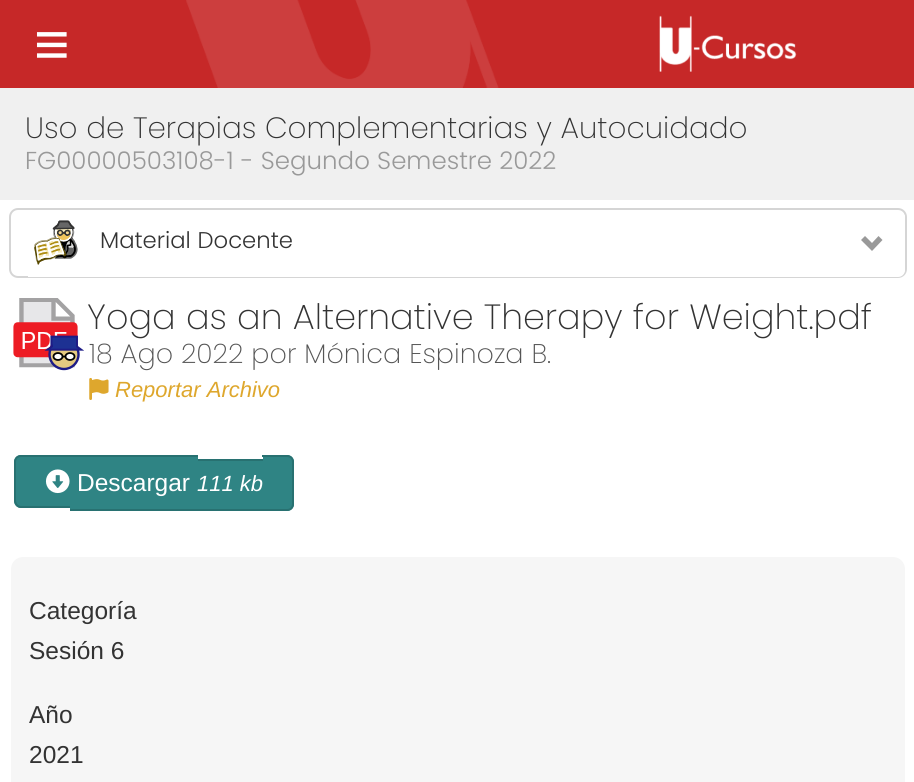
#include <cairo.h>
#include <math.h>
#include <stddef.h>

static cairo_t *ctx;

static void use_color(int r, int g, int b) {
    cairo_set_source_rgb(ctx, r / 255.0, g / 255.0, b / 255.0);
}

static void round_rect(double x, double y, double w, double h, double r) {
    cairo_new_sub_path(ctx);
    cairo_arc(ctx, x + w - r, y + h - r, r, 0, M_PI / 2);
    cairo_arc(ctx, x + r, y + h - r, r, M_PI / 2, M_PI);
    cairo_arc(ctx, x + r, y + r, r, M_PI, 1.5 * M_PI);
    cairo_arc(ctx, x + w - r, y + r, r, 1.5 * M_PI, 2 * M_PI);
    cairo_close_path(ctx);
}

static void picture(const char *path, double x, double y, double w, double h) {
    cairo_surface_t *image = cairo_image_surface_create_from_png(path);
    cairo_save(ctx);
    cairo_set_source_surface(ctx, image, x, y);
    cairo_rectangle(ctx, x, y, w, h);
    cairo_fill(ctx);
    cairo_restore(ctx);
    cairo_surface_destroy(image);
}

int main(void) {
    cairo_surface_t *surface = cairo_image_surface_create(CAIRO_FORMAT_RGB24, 914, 782);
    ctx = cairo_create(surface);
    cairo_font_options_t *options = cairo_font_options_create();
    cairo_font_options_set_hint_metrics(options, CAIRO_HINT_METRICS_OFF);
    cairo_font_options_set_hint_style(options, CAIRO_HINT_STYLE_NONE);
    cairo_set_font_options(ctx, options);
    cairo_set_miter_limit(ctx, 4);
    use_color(255, 255, 255);
    cairo_paint(ctx);
    use_color(198, 40, 40);
    cairo_rectangle(ctx, 0, 0, 914, 88);
    cairo_fill(ctx);
    picture("img1.png", 186, 0, 313, 88);
    picture("img2.png", 659, 15, 138, 57);
    cairo_select_font_face(ctx, "Liberation Sans", CAIRO_FONT_SLANT_NORMAL, CAIRO_FONT_WEIGHT_NORMAL);
    cairo_set_font_size(ctx, 61);
    use_color(255, 255, 255);
    cairo_move_to(ctx, 34, 65);
    cairo_show_text(ctx, "≡");
    use_color(240, 240, 240);
    cairo_rectangle(ctx, 0, 88, 914, 112);
    cairo_fill(ctx);
    cairo_select_font_face(ctx, "Poppins ExtraLight", CAIRO_FONT_SLANT_NORMAL, CAIRO_FONT_WEIGHT_NORMAL);
    cairo_set_font_size(ctx, 29.4);
    use_color(51, 51, 51);
    cairo_move_to(ctx, 25, 138);
    cairo_show_text(ctx, "Uso de Terapias Complementarias y Autocuidado");
    cairo_select_font_face(ctx, "Poppins Light", CAIRO_FONT_SLANT_NORMAL, CAIRO_FONT_WEIGHT_NORMAL);
    cairo_set_font_size(ctx, 24.5);
    use_color(153, 153, 153);
    cairo_move_to(ctx, 25, 169);
    cairo_show_text(ctx, "FG00000503108-1 - Segundo Semestre 2022");
    round_rect(10, 209, 896, 68, 8);
    use_color(213, 213, 213);
    cairo_stroke(ctx);
    cairo_save(ctx);
    round_rect(11, 210, 894, 67, 7);
    cairo_clip(ctx);
    use_color(255, 255, 255);
    cairo_new_path(ctx);
    cairo_move_to(ctx, 37, 215);
    cairo_line_to(ctx, 905, 215);
    cairo_line_to(ctx, 905, 270);
    cairo_curve_to(ctx, 905, 274, 902, 277, 898, 277);
    cairo_line_to(ctx, 28, 277);
    cairo_line_to(ctx, 28, 224);
    cairo_curve_to(ctx, 28, 219, 32, 215, 37, 215);
    cairo_close_path(ctx);
    cairo_fill(ctx);
    cairo_restore(ctx);
    picture("img3.png", 34, 220, 44, 45);
    cairo_set_font_size(ctx, 22.75);
    use_color(51, 51, 51);
    cairo_move_to(ctx, 100, 248);
    cairo_show_text(ctx, "Material Docente");
    use_color(153, 153, 153);
    cairo_new_path(ctx);
    cairo_move_to(ctx, 882.5, 240);
    cairo_line_to(ctx, 872, 251);
    cairo_line_to(ctx, 861, 240);
    cairo_line_to(ctx, 865, 236);
    cairo_line_to(ctx, 872, 243);
    cairo_line_to(ctx, 878.5, 236);
    cairo_close_path(ctx);
    cairo_fill(ctx);
    picture("img4.png", 13, 298, 65, 70);
    cairo_select_font_face(ctx, "Poppins ExtraLight", CAIRO_FONT_SLANT_NORMAL, CAIRO_FONT_WEIGHT_NORMAL);
    cairo_set_font_size(ctx, 35);
    use_color(51, 51, 51);
    cairo_move_to(ctx, 87, 329);
    cairo_show_text(ctx, "Yoga as an Alternative Therapy for Weight.pdf");
    picture("img5.png", 44, 335, 40, 36);
    cairo_set_font_size(ctx, 27);
    use_color(85, 85, 85);
    cairo_move_to(ctx, 89, 363);
    cairo_show_text(ctx, "18 Ago 2022 por Mónica Espinoza B.");
    picture("img6.png", 89, 378, 20, 22);
    cairo_select_font_face(ctx, "Liberation Sans", CAIRO_FONT_SLANT_ITALIC, CAIRO_FONT_WEIGHT_NORMAL);
    cairo_set_font_size(ctx, 22);
    use_color(222, 167, 45);
    cairo_move_to(ctx, 115, 397);
    cairo_show_text(ctx, "Reportar Archivo");
    use_color(47, 132, 132);
    cairo_new_path(ctx);
    cairo_move_to(ctx, 21, 455);
    cairo_line_to(ctx, 70, 455);
    cairo_line_to(ctx, 70, 508);
    cairo_line_to(ctx, 21, 508);
    cairo_curve_to(ctx, 17, 508, 14, 505, 14, 501);
    cairo_line_to(ctx, 14, 462);
    cairo_curve_to(ctx, 14, 458, 17, 455, 21, 455);
    cairo_close_path(ctx);
    cairo_fill(ctx);
    use_color(40, 113, 113);
    cairo_set_fill_rule(ctx, CAIRO_FILL_RULE_EVEN_ODD);
    cairo_new_path(ctx);
    cairo_move_to(ctx, 21, 455);
    cairo_line_to(ctx, 70, 455);
    cairo_line_to(ctx, 70, 508);
    cairo_line_to(ctx, 21, 508);
    cairo_curve_to(ctx, 17, 508, 14, 504, 14, 500);
    cairo_line_to(ctx, 14, 462);
    cairo_curve_to(ctx, 14, 458, 17, 455, 21, 455);
    cairo_close_path(ctx);
    cairo_move_to(ctx, 21, 457);
    cairo_line_to(ctx, 70, 457);
    cairo_line_to(ctx, 70, 506);
    cairo_line_to(ctx, 21, 506);
    cairo_curve_to(ctx, 18, 506, 16, 503, 16, 500);
    cairo_line_to(ctx, 16, 462);
    cairo_curve_to(ctx, 16, 459, 18, 457, 21, 457);
    cairo_close_path(ctx);
    cairo_fill(ctx);
    use_color(47, 132, 132);
    cairo_rectangle(ctx, 70, 457, 128, 52);
    cairo_fill(ctx);
    use_color(40, 113, 113);
    cairo_rectangle(ctx, 70, 455, 128, 2);
    cairo_fill(ctx);
    cairo_rectangle(ctx, 70, 509, 193, 2);
    cairo_fill(ctx);
    use_color(47, 132, 132);
    cairo_rectangle(ctx, 198, 461, 65, 48);
    cairo_fill(ctx);
    use_color(40, 113, 113);
    cairo_rectangle(ctx, 198, 459, 65, 2);
    cairo_fill(ctx);
    use_color(47, 132, 132);
    cairo_new_path(ctx);
    cairo_move_to(ctx, 263, 455);
    cairo_line_to(ctx, 287, 455);
    cairo_curve_to(ctx, 291, 455, 294, 458, 294, 462);
    cairo_line_to(ctx, 294, 504);
    cairo_curve_to(ctx, 294, 508, 291, 511, 287, 511);
    cairo_line_to(ctx, 263, 511);
    cairo_close_path(ctx);
    cairo_fill(ctx);
    use_color(40, 113, 113);
    cairo_new_path(ctx);
    cairo_move_to(ctx, 262, 455);
    cairo_line_to(ctx, 287, 455);
    cairo_curve_to(ctx, 291, 455, 294, 458, 294, 462);
    cairo_line_to(ctx, 294, 504);
    cairo_curve_to(ctx, 294, 508, 291, 511, 287, 511);
    cairo_line_to(ctx, 262, 511);
    cairo_close_path(ctx);
    cairo_move_to(ctx, 262, 457);
    cairo_line_to(ctx, 287, 457);
    cairo_curve_to(ctx, 290, 457, 292, 459, 292, 462);
    cairo_line_to(ctx, 292, 504);
    cairo_curve_to(ctx, 292, 507, 290, 509, 287, 509);
    cairo_line_to(ctx, 262, 509);
    cairo_close_path(ctx);
    cairo_fill(ctx);
    picture("img7.png", 45, 469, 25, 25);
    cairo_select_font_face(ctx, "Liberation Sans", CAIRO_FONT_SLANT_NORMAL, CAIRO_FONT_WEIGHT_NORMAL);
    cairo_set_font_size(ctx, 24.5);
    use_color(255, 255, 255);
    cairo_move_to(ctx, 77, 491);
    cairo_show_text(ctx, "Descargar");
    cairo_select_font_face(ctx, "Liberation Sans", CAIRO_FONT_SLANT_ITALIC, CAIRO_FONT_WEIGHT_NORMAL);
    cairo_set_font_size(ctx, 22);
    cairo_move_to(ctx, 197, 491);
    cairo_show_text(ctx, "111 kb");
    use_color(246, 246, 246);
    round_rect(11, 557, 894, 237, 12);
    cairo_fill(ctx);
    cairo_select_font_face(ctx, "Liberation Sans", CAIRO_FONT_SLANT_NORMAL, CAIRO_FONT_WEIGHT_NORMAL);
    cairo_set_font_size(ctx, 24.5);
    use_color(51, 51, 51);
    cairo_move_to(ctx, 29, 619);
    cairo_show_text(ctx, "Categoría");
    cairo_move_to(ctx, 29, 659);
    cairo_show_text(ctx, "Sesión 6");
    cairo_move_to(ctx, 29, 723);
    cairo_show_text(ctx, "Año");
    cairo_move_to(ctx, 29, 763);
    cairo_show_text(ctx, "2021");
    cairo_surface_write_to_png(surface, "result.png");
    cairo_font_options_destroy(options);
    cairo_destroy(ctx);
    cairo_surface_destroy(surface);
    return 0;
}
